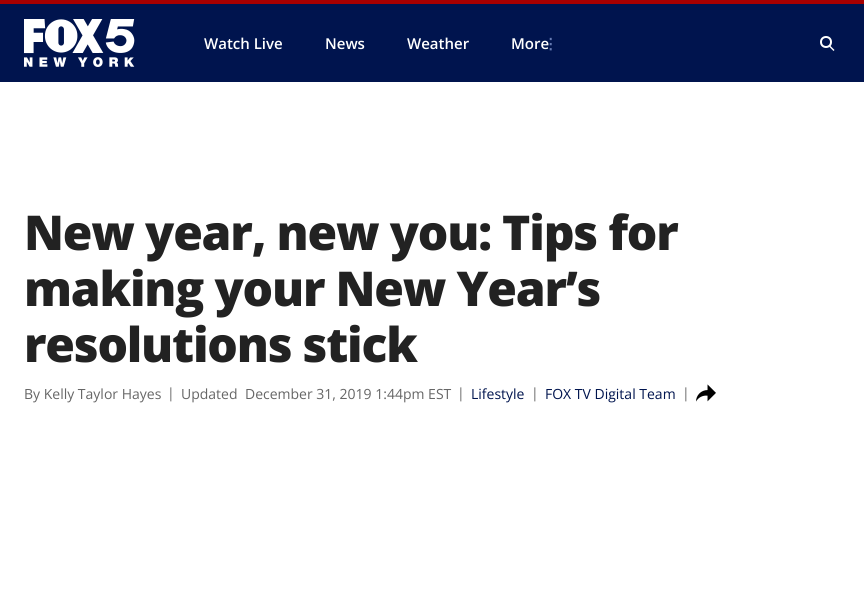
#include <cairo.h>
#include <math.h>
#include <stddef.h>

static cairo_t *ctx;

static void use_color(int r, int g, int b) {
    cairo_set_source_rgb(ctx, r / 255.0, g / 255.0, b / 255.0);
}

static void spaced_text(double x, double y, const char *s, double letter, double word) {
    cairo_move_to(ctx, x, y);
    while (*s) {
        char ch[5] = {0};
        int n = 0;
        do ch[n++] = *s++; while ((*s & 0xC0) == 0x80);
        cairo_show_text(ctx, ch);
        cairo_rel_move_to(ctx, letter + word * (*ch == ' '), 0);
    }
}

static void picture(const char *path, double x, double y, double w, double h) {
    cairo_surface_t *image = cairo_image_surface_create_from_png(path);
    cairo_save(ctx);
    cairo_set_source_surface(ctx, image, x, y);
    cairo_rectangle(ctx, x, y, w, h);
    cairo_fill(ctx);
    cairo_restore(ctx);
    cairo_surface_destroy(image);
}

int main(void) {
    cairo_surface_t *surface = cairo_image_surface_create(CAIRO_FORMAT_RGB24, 864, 610);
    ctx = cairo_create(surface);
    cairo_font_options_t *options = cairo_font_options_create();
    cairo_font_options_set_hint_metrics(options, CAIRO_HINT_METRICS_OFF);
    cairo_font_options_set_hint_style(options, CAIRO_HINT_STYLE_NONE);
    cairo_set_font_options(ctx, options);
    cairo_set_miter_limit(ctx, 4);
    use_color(255, 255, 255);
    cairo_paint(ctx);
    use_color(0, 20, 78);
    cairo_rectangle(ctx, 0, 4, 864, 78);
    cairo_fill(ctx);
    use_color(167, 0, 0);
    cairo_rectangle(ctx, 0, 0, 864, 4);
    cairo_fill(ctx);
    picture("img1.png", 24, 19, 111, 48);
    cairo_select_font_face(ctx, "Open Sans SemiBold", CAIRO_FONT_SLANT_NORMAL, CAIRO_FONT_WEIGHT_NORMAL);
    cairo_set_font_size(ctx, 15);
    use_color(255, 255, 255);
    cairo_move_to(ctx, 204, 49);
    cairo_show_text(ctx, "Watch Live");
    cairo_move_to(ctx, 325, 49);
    cairo_show_text(ctx, "News");
    cairo_move_to(ctx, 407, 49);
    cairo_show_text(ctx, "Weather");
    cairo_move_to(ctx, 511, 49);
    cairo_show_text(ctx, "More");
    cairo_select_font_face(ctx, "DejaVu Sans", CAIRO_FONT_SLANT_NORMAL, CAIRO_FONT_WEIGHT_BOLD);
    use_color(102, 123, 179);
    cairo_move_to(ctx, 543, 49);
    cairo_show_text(ctx, "⋮");
    cairo_new_path(ctx);
    cairo_arc(ctx, 826, 42, 5, 0, 2 * M_PI);
    use_color(255, 255, 255);
    cairo_stroke(ctx);
    cairo_new_path(ctx);
    cairo_move_to(ctx, 829.5, 45);
    cairo_line_to(ctx, 834.5, 50);
    cairo_line_to(ctx, 833.5, 51);
    cairo_line_to(ctx, 828.5, 46);
    cairo_close_path(ctx);
    cairo_fill(ctx);
    cairo_select_font_face(ctx, "Open Sans ExtraBold", CAIRO_FONT_SLANT_NORMAL, CAIRO_FONT_WEIGHT_NORMAL);
    cairo_set_font_size(ctx, 48);
    use_color(34, 34, 34);
    spaced_text(24, 250, "New year, new you: Tips for", -1.2, 0);
    spaced_text(24, 306, "making your New Year’s", -1.2, 0);
    spaced_text(24, 362, "resolutions stick", -1.2, 0);
    cairo_select_font_face(ctx, "Open Sans", CAIRO_FONT_SLANT_NORMAL, CAIRO_FONT_WEIGHT_NORMAL);
    cairo_set_font_size(ctx, 14);
    use_color(102, 102, 102);
    cairo_move_to(ctx, 24, 399);
    cairo_show_text(ctx, "By Kelly Taylor Hayes");
    cairo_move_to(ctx, 167, 398);
    cairo_show_text(ctx, "|");
    cairo_move_to(ctx, 181, 399);
    cairo_show_text(ctx, "Updated");
    cairo_move_to(ctx, 245, 399);
    cairo_show_text(ctx, "December 31, 2019 1:44pm EST");
    cairo_move_to(ctx, 457, 398);
    cairo_show_text(ctx, "|");
    use_color(0, 20, 78);
    cairo_move_to(ctx, 471, 399);
    cairo_show_text(ctx, "Lifestyle");
    use_color(102, 102, 102);
    cairo_move_to(ctx, 531, 398);
    cairo_show_text(ctx, "|");
    use_color(0, 20, 78);
    cairo_move_to(ctx, 545, 399);
    cairo_show_text(ctx, "FOX TV Digital Team");
    use_color(102, 102, 102);
    cairo_move_to(ctx, 682, 398);
    cairo_show_text(ctx, "|");
    picture("img2.png", 696, 384, 20, 18);
    cairo_surface_write_to_png(surface, "result.png");
    cairo_font_options_destroy(options);
    cairo_destroy(ctx);
    cairo_surface_destroy(surface);
    return 0;
}
